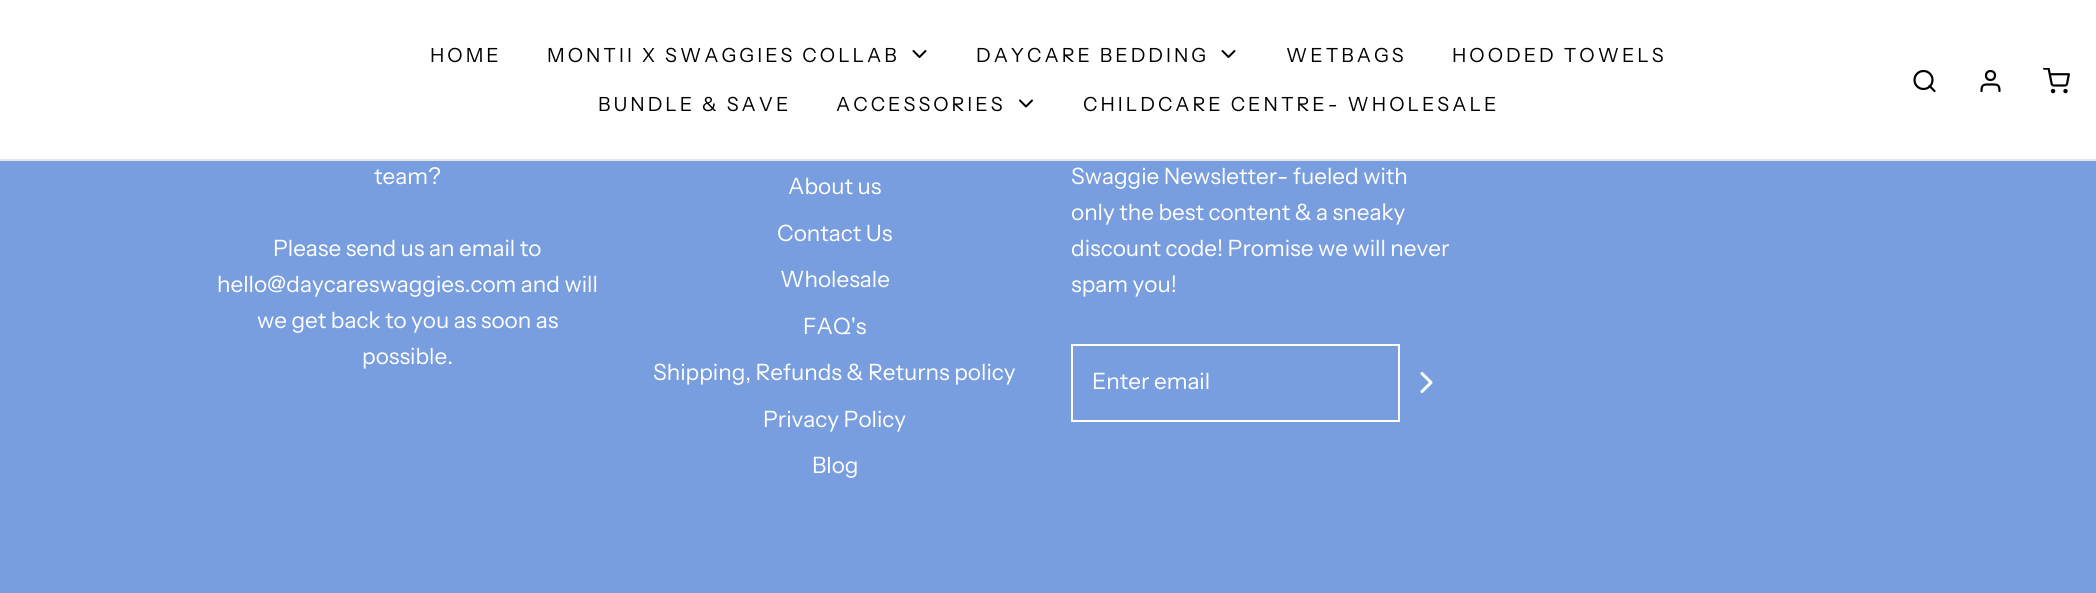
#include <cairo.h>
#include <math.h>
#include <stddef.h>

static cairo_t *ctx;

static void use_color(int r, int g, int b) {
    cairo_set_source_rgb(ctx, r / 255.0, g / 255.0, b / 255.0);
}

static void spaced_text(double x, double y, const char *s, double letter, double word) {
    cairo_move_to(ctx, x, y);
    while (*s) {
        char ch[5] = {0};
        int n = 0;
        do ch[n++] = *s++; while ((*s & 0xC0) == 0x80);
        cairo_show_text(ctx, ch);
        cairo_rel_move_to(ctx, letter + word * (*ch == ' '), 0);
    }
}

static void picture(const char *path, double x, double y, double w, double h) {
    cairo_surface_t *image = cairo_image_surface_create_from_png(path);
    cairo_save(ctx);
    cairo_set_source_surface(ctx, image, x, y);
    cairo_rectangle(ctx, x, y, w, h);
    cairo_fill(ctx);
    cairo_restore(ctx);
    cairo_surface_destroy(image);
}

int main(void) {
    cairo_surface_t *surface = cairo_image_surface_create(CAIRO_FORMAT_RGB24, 2096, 593);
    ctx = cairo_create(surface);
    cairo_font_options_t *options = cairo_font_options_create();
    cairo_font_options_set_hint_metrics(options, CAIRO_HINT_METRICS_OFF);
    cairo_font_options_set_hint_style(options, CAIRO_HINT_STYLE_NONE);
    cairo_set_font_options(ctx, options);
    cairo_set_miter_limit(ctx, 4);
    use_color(121, 158, 223);
    cairo_paint(ctx);
    use_color(255, 255, 255);
    cairo_rectangle(ctx, 0, 0, 2096, 159);
    cairo_fill(ctx);
    use_color(230, 230, 230);
    cairo_rectangle(ctx, 0, 159, 2096, 2);
    cairo_fill(ctx);
    cairo_select_font_face(ctx, "Instrument Sans", CAIRO_FONT_SLANT_NORMAL, CAIRO_FONT_WEIGHT_NORMAL);
    cairo_set_font_size(ctx, 19.5);
    use_color(0, 0, 0);
    spaced_text(430, 62, "HOME", 3, 0);
    spaced_text(547, 62, "MONTII X SWAGGIES COLLAB", 3, 0);
    cairo_new_path(ctx);
    cairo_move_to(ctx, 913.5, 51);
    cairo_line_to(ctx, 919.5, 57);
    cairo_line_to(ctx, 925.5, 51);
    cairo_set_line_cap(ctx, CAIRO_LINE_CAP_ROUND);
    cairo_set_line_join(ctx, CAIRO_LINE_JOIN_ROUND);
    cairo_stroke(ctx);
    spaced_text(976, 62, "DAYCARE BEDDING", 3, 0);
    cairo_new_path(ctx);
    cairo_move_to(ctx, 1222.5, 51);
    cairo_line_to(ctx, 1228.5, 57);
    cairo_line_to(ctx, 1234.5, 51);
    cairo_stroke(ctx);
    spaced_text(1286, 62, "WETBAGS", 3, 0);
    spaced_text(1452, 62, "HOODED TOWELS", 3, 0);
    spaced_text(598, 111, "BUNDLE & SAVE", 3, 0);
    spaced_text(836, 111, "ACCESSORIES", 3, 0);
    cairo_new_path(ctx);
    cairo_move_to(ctx, 1020, 100.5);
    cairo_line_to(ctx, 1026, 106.5);
    cairo_line_to(ctx, 1032, 100.5);
    cairo_stroke(ctx);
    spaced_text(1083, 111, "CHILDCARE CENTRE- WHOLESALE", 3, 0);
    cairo_new_path(ctx);
    cairo_arc(ctx, 1923.5, 80, 9, 0, 2 * M_PI);
    cairo_set_line_width(ctx, 2.2);
    cairo_set_line_cap(ctx, CAIRO_LINE_CAP_BUTT);
    cairo_set_line_join(ctx, CAIRO_LINE_JOIN_MITER);
    cairo_stroke(ctx);
    cairo_new_path(ctx);
    cairo_move_to(ctx, 1934.5, 91);
    cairo_line_to(ctx, 1929.5, 86);
    cairo_set_line_cap(ctx, CAIRO_LINE_CAP_ROUND);
    cairo_set_line_join(ctx, CAIRO_LINE_JOIN_ROUND);
    cairo_stroke(ctx);
    cairo_arc(ctx, 1990.5, 75.5, 4.5, 0, 2 * M_PI);
    cairo_set_line_cap(ctx, CAIRO_LINE_CAP_BUTT);
    cairo_set_line_join(ctx, CAIRO_LINE_JOIN_MITER);
    cairo_stroke(ctx);
    cairo_new_path(ctx);
    cairo_move_to(ctx, 1999.5, 91);
    cairo_curve_to(ctx, 1999.5, 84, 1997, 84.5, 1990.5, 84.5);
    cairo_curve_to(ctx, 1984, 84.5, 1981.5, 84, 1981.5, 91);
    cairo_set_line_cap(ctx, CAIRO_LINE_CAP_ROUND);
    cairo_set_line_join(ctx, CAIRO_LINE_JOIN_ROUND);
    cairo_stroke(ctx);
    picture("img1.png", 2043, 68, 27, 26);
    cairo_set_font_size(ctx, 22.5);
    use_color(255, 255, 255);
    cairo_move_to(ctx, 374, 184);
    cairo_show_text(ctx, "team?");
    cairo_move_to(ctx, 273, 256);
    cairo_show_text(ctx, "Please send us an email to");
    cairo_move_to(ctx, 217, 292);
    cairo_show_text(ctx, "hello@daycareswaggies.com and will");
    cairo_move_to(ctx, 257, 328);
    cairo_show_text(ctx, "we get back to you as soon as");
    cairo_move_to(ctx, 362, 364);
    cairo_show_text(ctx, "possible.");
    cairo_move_to(ctx, 788, 194);
    cairo_show_text(ctx, "About us");
    cairo_move_to(ctx, 777, 241);
    cairo_show_text(ctx, "Contact Us");
    cairo_move_to(ctx, 780, 287);
    cairo_show_text(ctx, "Wholesale");
    cairo_move_to(ctx, 803, 334);
    cairo_show_text(ctx, "FAQ's");
    cairo_move_to(ctx, 653, 380);
    cairo_show_text(ctx, "Shipping, Refunds & Returns policy");
    cairo_move_to(ctx, 763, 427);
    cairo_show_text(ctx, "Privacy Policy");
    cairo_move_to(ctx, 812, 473);
    cairo_show_text(ctx, "Blog");
    cairo_move_to(ctx, 1071, 184);
    cairo_show_text(ctx, "Swaggie Newsletter- fueled with");
    cairo_move_to(ctx, 1071, 220);
    cairo_show_text(ctx, "only the best content & a sneaky");
    cairo_move_to(ctx, 1071, 256);
    cairo_show_text(ctx, "discount code! Promise we will never");
    cairo_move_to(ctx, 1071, 292);
    cairo_show_text(ctx, "spam you!");
    cairo_rectangle(ctx, 1072, 345, 327, 76);
    cairo_set_line_width(ctx, 2);
    cairo_set_line_cap(ctx, CAIRO_LINE_CAP_BUTT);
    cairo_set_line_join(ctx, CAIRO_LINE_JOIN_MITER);
    cairo_stroke(ctx);
    cairo_move_to(ctx, 1092, 389);
    cairo_show_text(ctx, "Enter email");
    cairo_new_path(ctx);
    cairo_move_to(ctx, 1422, 391.5);
    cairo_line_to(ctx, 1431, 382.5);
    cairo_line_to(ctx, 1422, 373.5);
    cairo_set_line_width(ctx, 3);
    cairo_set_line_cap(ctx, CAIRO_LINE_CAP_ROUND);
    cairo_set_line_join(ctx, CAIRO_LINE_JOIN_ROUND);
    cairo_stroke(ctx);
    cairo_surface_write_to_png(surface, "result.png");
    cairo_font_options_destroy(options);
    cairo_destroy(ctx);
    cairo_surface_destroy(surface);
    return 0;
}
